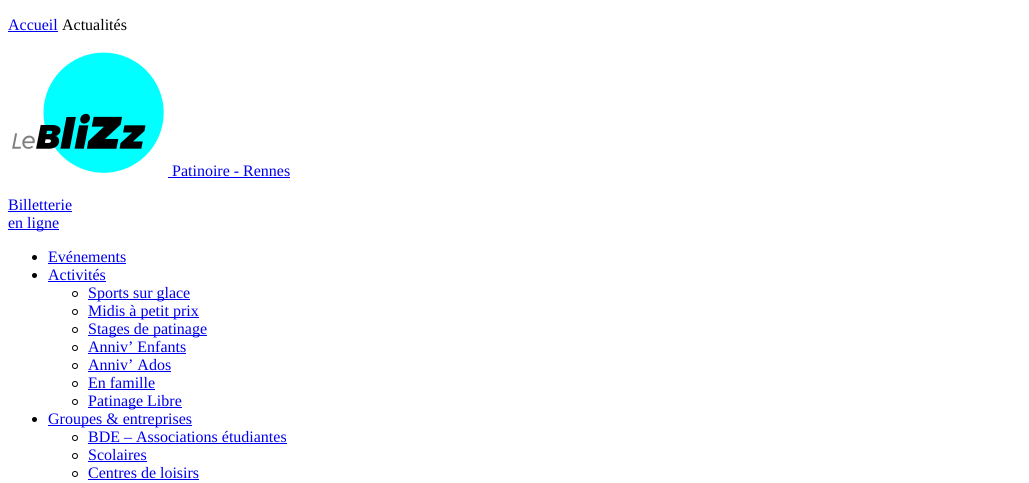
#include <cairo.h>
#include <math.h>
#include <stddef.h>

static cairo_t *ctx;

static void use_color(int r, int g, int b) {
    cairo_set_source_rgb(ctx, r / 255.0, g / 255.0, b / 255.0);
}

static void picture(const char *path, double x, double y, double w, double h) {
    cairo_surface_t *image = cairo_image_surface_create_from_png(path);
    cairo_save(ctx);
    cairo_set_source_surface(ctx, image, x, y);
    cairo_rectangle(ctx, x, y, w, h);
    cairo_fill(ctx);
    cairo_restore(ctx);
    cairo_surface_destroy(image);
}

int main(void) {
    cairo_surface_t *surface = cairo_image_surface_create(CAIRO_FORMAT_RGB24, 1029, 483);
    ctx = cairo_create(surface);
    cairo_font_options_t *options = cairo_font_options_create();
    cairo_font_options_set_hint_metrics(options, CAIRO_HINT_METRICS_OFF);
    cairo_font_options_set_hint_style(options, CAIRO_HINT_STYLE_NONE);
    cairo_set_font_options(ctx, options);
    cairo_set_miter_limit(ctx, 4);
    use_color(255, 255, 255);
    cairo_paint(ctx);
    cairo_select_font_face(ctx, "Liberation Serif", CAIRO_FONT_SLANT_NORMAL, CAIRO_FONT_WEIGHT_NORMAL);
    cairo_set_font_size(ctx, 16);
    use_color(0, 0, 238);
    cairo_move_to(ctx, 8, 30);
    cairo_show_text(ctx, "Accueil");
    cairo_rectangle(ctx, 8, 31, 50, 1);
    cairo_fill(ctx);
    use_color(0, 0, 0);
    cairo_move_to(ctx, 62, 30);
    cairo_show_text(ctx, "Actualités");
    picture("img1.png", 12, 52, 152, 121);
    use_color(0, 0, 238);
    cairo_move_to(ctx, 172, 176);
    cairo_show_text(ctx, "Patinoire - Rennes");
    cairo_rectangle(ctx, 168, 177, 122, 1);
    cairo_fill(ctx);
    cairo_move_to(ctx, 8, 210);
    cairo_show_text(ctx, "Billetterie");
    cairo_rectangle(ctx, 8, 211, 64, 1);
    cairo_fill(ctx);
    cairo_rectangle(ctx, 8, 229, 51, 1);
    cairo_fill(ctx);
    cairo_move_to(ctx, 8, 228);
    cairo_show_text(ctx, "en ligne");
    use_color(0, 0, 0);
    cairo_new_path(ctx);
    cairo_arc(ctx, 34.5, 257.5, 2.5, 0, 2 * M_PI);
    cairo_fill(ctx);
    use_color(0, 0, 238);
    cairo_move_to(ctx, 48, 262);
    cairo_show_text(ctx, "Evénements");
    cairo_rectangle(ctx, 48, 263, 78, 1);
    cairo_fill(ctx);
    use_color(0, 0, 0);
    cairo_arc(ctx, 34.5, 275.5, 2.5, 0, 2 * M_PI);
    cairo_fill(ctx);
    use_color(0, 0, 238);
    cairo_move_to(ctx, 48, 280);
    cairo_show_text(ctx, "Activités");
    cairo_rectangle(ctx, 48, 281, 58, 1);
    cairo_fill(ctx);
    cairo_arc(ctx, 75, 294, 2.5, 0, 2 * M_PI);
    use_color(0, 0, 0);
    cairo_set_line_width(ctx, 1);
    cairo_stroke(ctx);
    use_color(0, 0, 238);
    cairo_rectangle(ctx, 88, 299, 102, 1);
    cairo_fill(ctx);
    cairo_move_to(ctx, 88, 298);
    cairo_show_text(ctx, "Sports sur glace");
    cairo_new_path(ctx);
    cairo_arc(ctx, 75, 312, 2.5, 0, 2 * M_PI);
    use_color(0, 0, 0);
    cairo_stroke(ctx);
    use_color(0, 0, 238);
    cairo_rectangle(ctx, 88, 317, 111, 1);
    cairo_fill(ctx);
    cairo_move_to(ctx, 88, 316);
    cairo_show_text(ctx, "Midis à petit prix");
    cairo_new_path(ctx);
    cairo_arc(ctx, 75, 330, 2.5, 0, 2 * M_PI);
    use_color(0, 0, 0);
    cairo_stroke(ctx);
    use_color(0, 0, 238);
    cairo_rectangle(ctx, 88, 335, 119, 1);
    cairo_fill(ctx);
    cairo_move_to(ctx, 88, 334);
    cairo_show_text(ctx, "Stages de patinage");
    cairo_new_path(ctx);
    cairo_arc(ctx, 75, 348, 2.5, 0, 2 * M_PI);
    use_color(0, 0, 0);
    cairo_stroke(ctx);
    use_color(0, 0, 238);
    cairo_move_to(ctx, 88, 352);
    cairo_show_text(ctx, "Anniv’ Enfants");
    cairo_rectangle(ctx, 88, 353, 98, 1);
    cairo_fill(ctx);
    cairo_arc(ctx, 75, 366, 2.5, 0, 2 * M_PI);
    use_color(0, 0, 0);
    cairo_stroke(ctx);
    use_color(0, 0, 238);
    cairo_move_to(ctx, 88, 370);
    cairo_show_text(ctx, "Anniv’ Ados");
    cairo_rectangle(ctx, 88, 371, 83, 1);
    cairo_fill(ctx);
    cairo_arc(ctx, 75, 384, 2.5, 0, 2 * M_PI);
    use_color(0, 0, 0);
    cairo_stroke(ctx);
    use_color(0, 0, 238);
    cairo_move_to(ctx, 88, 388);
    cairo_show_text(ctx, "En famille");
    cairo_rectangle(ctx, 88, 389, 67, 1);
    cairo_fill(ctx);
    cairo_arc(ctx, 75, 402, 2.5, 0, 2 * M_PI);
    use_color(0, 0, 0);
    cairo_stroke(ctx);
    use_color(0, 0, 238);
    cairo_rectangle(ctx, 88, 407, 94, 1);
    cairo_fill(ctx);
    cairo_move_to(ctx, 88, 406);
    cairo_show_text(ctx, "Patinage Libre");
    use_color(0, 0, 0);
    cairo_new_path(ctx);
    cairo_arc(ctx, 34.5, 419.5, 2.5, 0, 2 * M_PI);
    cairo_fill(ctx);
    use_color(0, 0, 238);
    cairo_rectangle(ctx, 48, 425, 144, 1);
    cairo_fill(ctx);
    cairo_move_to(ctx, 48, 424);
    cairo_show_text(ctx, "Groupes & entreprises");
    cairo_new_path(ctx);
    cairo_arc(ctx, 75, 438, 2.5, 0, 2 * M_PI);
    use_color(0, 0, 0);
    cairo_stroke(ctx);
    use_color(0, 0, 238);
    cairo_move_to(ctx, 88, 442);
    cairo_show_text(ctx, "BDE – Associations étudiantes");
    cairo_rectangle(ctx, 88, 443, 199, 1);
    cairo_fill(ctx);
    cairo_arc(ctx, 75, 456, 2.5, 0, 2 * M_PI);
    use_color(0, 0, 0);
    cairo_stroke(ctx);
    use_color(0, 0, 238);
    cairo_move_to(ctx, 88, 460);
    cairo_show_text(ctx, "Scolaires");
    cairo_rectangle(ctx, 88, 461, 59, 1);
    cairo_fill(ctx);
    cairo_arc(ctx, 75, 474, 2.5, 0, 2 * M_PI);
    use_color(0, 0, 0);
    cairo_stroke(ctx);
    use_color(0, 0, 238);
    cairo_move_to(ctx, 88, 478);
    cairo_show_text(ctx, "Centres de loisirs");
    cairo_rectangle(ctx, 88, 479, 111, 1);
    cairo_fill(ctx);
    cairo_surface_write_to_png(surface, "result.png");
    cairo_font_options_destroy(options);
    cairo_destroy(ctx);
    cairo_surface_destroy(surface);
    return 0;
}
